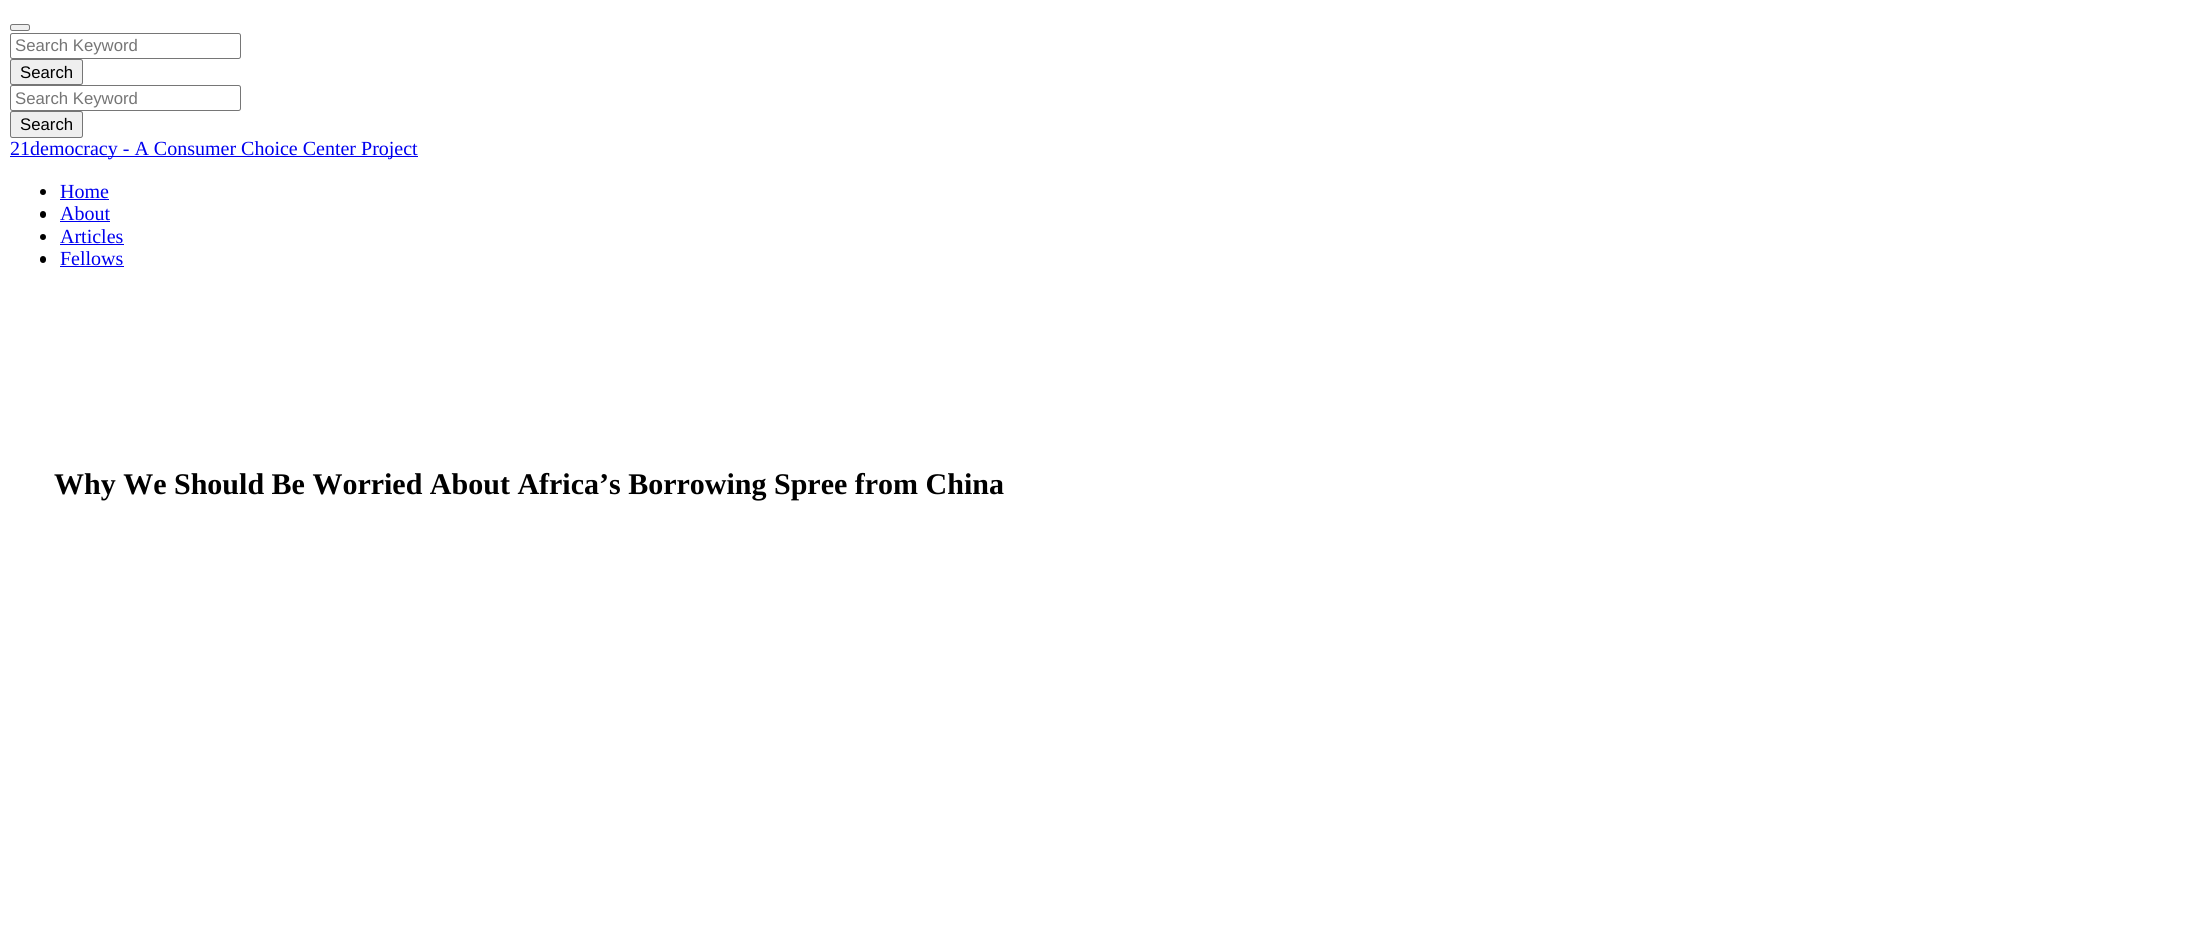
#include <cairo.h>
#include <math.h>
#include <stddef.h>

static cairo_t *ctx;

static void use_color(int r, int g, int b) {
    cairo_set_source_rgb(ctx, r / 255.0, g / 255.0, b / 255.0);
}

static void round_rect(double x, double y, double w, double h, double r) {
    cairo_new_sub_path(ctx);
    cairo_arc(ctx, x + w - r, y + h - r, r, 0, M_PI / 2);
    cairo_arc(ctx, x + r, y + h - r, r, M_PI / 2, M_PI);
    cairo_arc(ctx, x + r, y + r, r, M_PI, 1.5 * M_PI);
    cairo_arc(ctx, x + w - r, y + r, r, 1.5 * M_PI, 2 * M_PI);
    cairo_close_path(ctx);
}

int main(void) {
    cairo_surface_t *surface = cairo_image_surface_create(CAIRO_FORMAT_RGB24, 2210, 925);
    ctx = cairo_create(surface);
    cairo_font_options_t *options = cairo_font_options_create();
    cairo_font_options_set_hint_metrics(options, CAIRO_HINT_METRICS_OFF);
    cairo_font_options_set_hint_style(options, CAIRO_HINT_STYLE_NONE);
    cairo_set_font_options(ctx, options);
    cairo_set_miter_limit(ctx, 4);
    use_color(255, 255, 255);
    cairo_paint(ctx);
    use_color(239, 239, 239);
    round_rect(10.5, 24.5, 19, 6, 2);
    cairo_fill_preserve(ctx);
    use_color(118, 118, 118);
    cairo_set_line_width(ctx, 1);
    cairo_stroke(ctx);
    round_rect(10.5, 33.5, 230, 25, 2);
    cairo_stroke(ctx);
    cairo_select_font_face(ctx, "Liberation Sans", CAIRO_FONT_SLANT_NORMAL, CAIRO_FONT_WEIGHT_NORMAL);
    cairo_set_font_size(ctx, 16.75);
    use_color(117, 117, 117);
    cairo_move_to(ctx, 15, 51);
    cairo_show_text(ctx, "Search Keyword");
    use_color(239, 239, 239);
    round_rect(10.5, 59.5, 72, 25, 2);
    cairo_fill_preserve(ctx);
    use_color(118, 118, 118);
    cairo_stroke(ctx);
    use_color(0, 0, 0);
    cairo_move_to(ctx, 20, 78);
    cairo_show_text(ctx, "Search");
    round_rect(10.5, 85.5, 230, 25, 2);
    use_color(118, 118, 118);
    cairo_stroke(ctx);
    use_color(117, 117, 117);
    cairo_move_to(ctx, 15, 104);
    cairo_show_text(ctx, "Search Keyword");
    use_color(239, 239, 239);
    round_rect(10.5, 111.5, 72, 26, 2);
    cairo_fill_preserve(ctx);
    use_color(118, 118, 118);
    cairo_stroke(ctx);
    use_color(0, 0, 0);
    cairo_move_to(ctx, 20, 130);
    cairo_show_text(ctx, "Search");
    use_color(0, 0, 238);
    cairo_rectangle(ctx, 10, 156, 408, 1);
    cairo_fill(ctx);
    cairo_select_font_face(ctx, "Liberation Serif", CAIRO_FONT_SLANT_NORMAL, CAIRO_FONT_WEIGHT_NORMAL);
    cairo_set_font_size(ctx, 20);
    cairo_move_to(ctx, 10, 155);
    cairo_show_text(ctx, "21democracy - A Consumer Choice Center Project");
    use_color(0, 0, 0);
    cairo_new_path(ctx);
    cairo_arc(ctx, 43, 192, 3, 0, 2 * M_PI);
    cairo_fill(ctx);
    use_color(0, 0, 238);
    cairo_move_to(ctx, 60, 198);
    cairo_show_text(ctx, "Home");
    cairo_rectangle(ctx, 60, 199, 49, 1);
    cairo_fill(ctx);
    use_color(0, 0, 0);
    round_rect(40, 211, 6, 7, 3);
    cairo_fill(ctx);
    use_color(0, 0, 238);
    cairo_move_to(ctx, 60, 220);
    cairo_show_text(ctx, "About");
    cairo_rectangle(ctx, 60, 221, 50, 1);
    cairo_fill(ctx);
    use_color(0, 0, 0);
    cairo_arc(ctx, 43, 237, 3, 0, 2 * M_PI);
    cairo_fill(ctx);
    use_color(0, 0, 238);
    cairo_move_to(ctx, 60, 243);
    cairo_show_text(ctx, "Articles");
    cairo_rectangle(ctx, 60, 244, 64, 1);
    cairo_fill(ctx);
    use_color(0, 0, 0);
    round_rect(40, 256, 6, 7, 3);
    cairo_fill(ctx);
    use_color(0, 0, 238);
    cairo_move_to(ctx, 60, 265);
    cairo_show_text(ctx, "Fellows");
    cairo_rectangle(ctx, 60, 266, 64, 1);
    cairo_fill(ctx);
    cairo_select_font_face(ctx, "Liberation Serif", CAIRO_FONT_SLANT_NORMAL, CAIRO_FONT_WEIGHT_BOLD);
    cairo_set_font_size(ctx, 30);
    use_color(0, 0, 0);
    cairo_move_to(ctx, 54, 494);
    cairo_show_text(ctx, "Why We Should Be Worried About Africa’s Borrowing Spree from China");
    cairo_surface_write_to_png(surface, "result.png");
    cairo_font_options_destroy(options);
    cairo_destroy(ctx);
    cairo_surface_destroy(surface);
    return 0;
}
